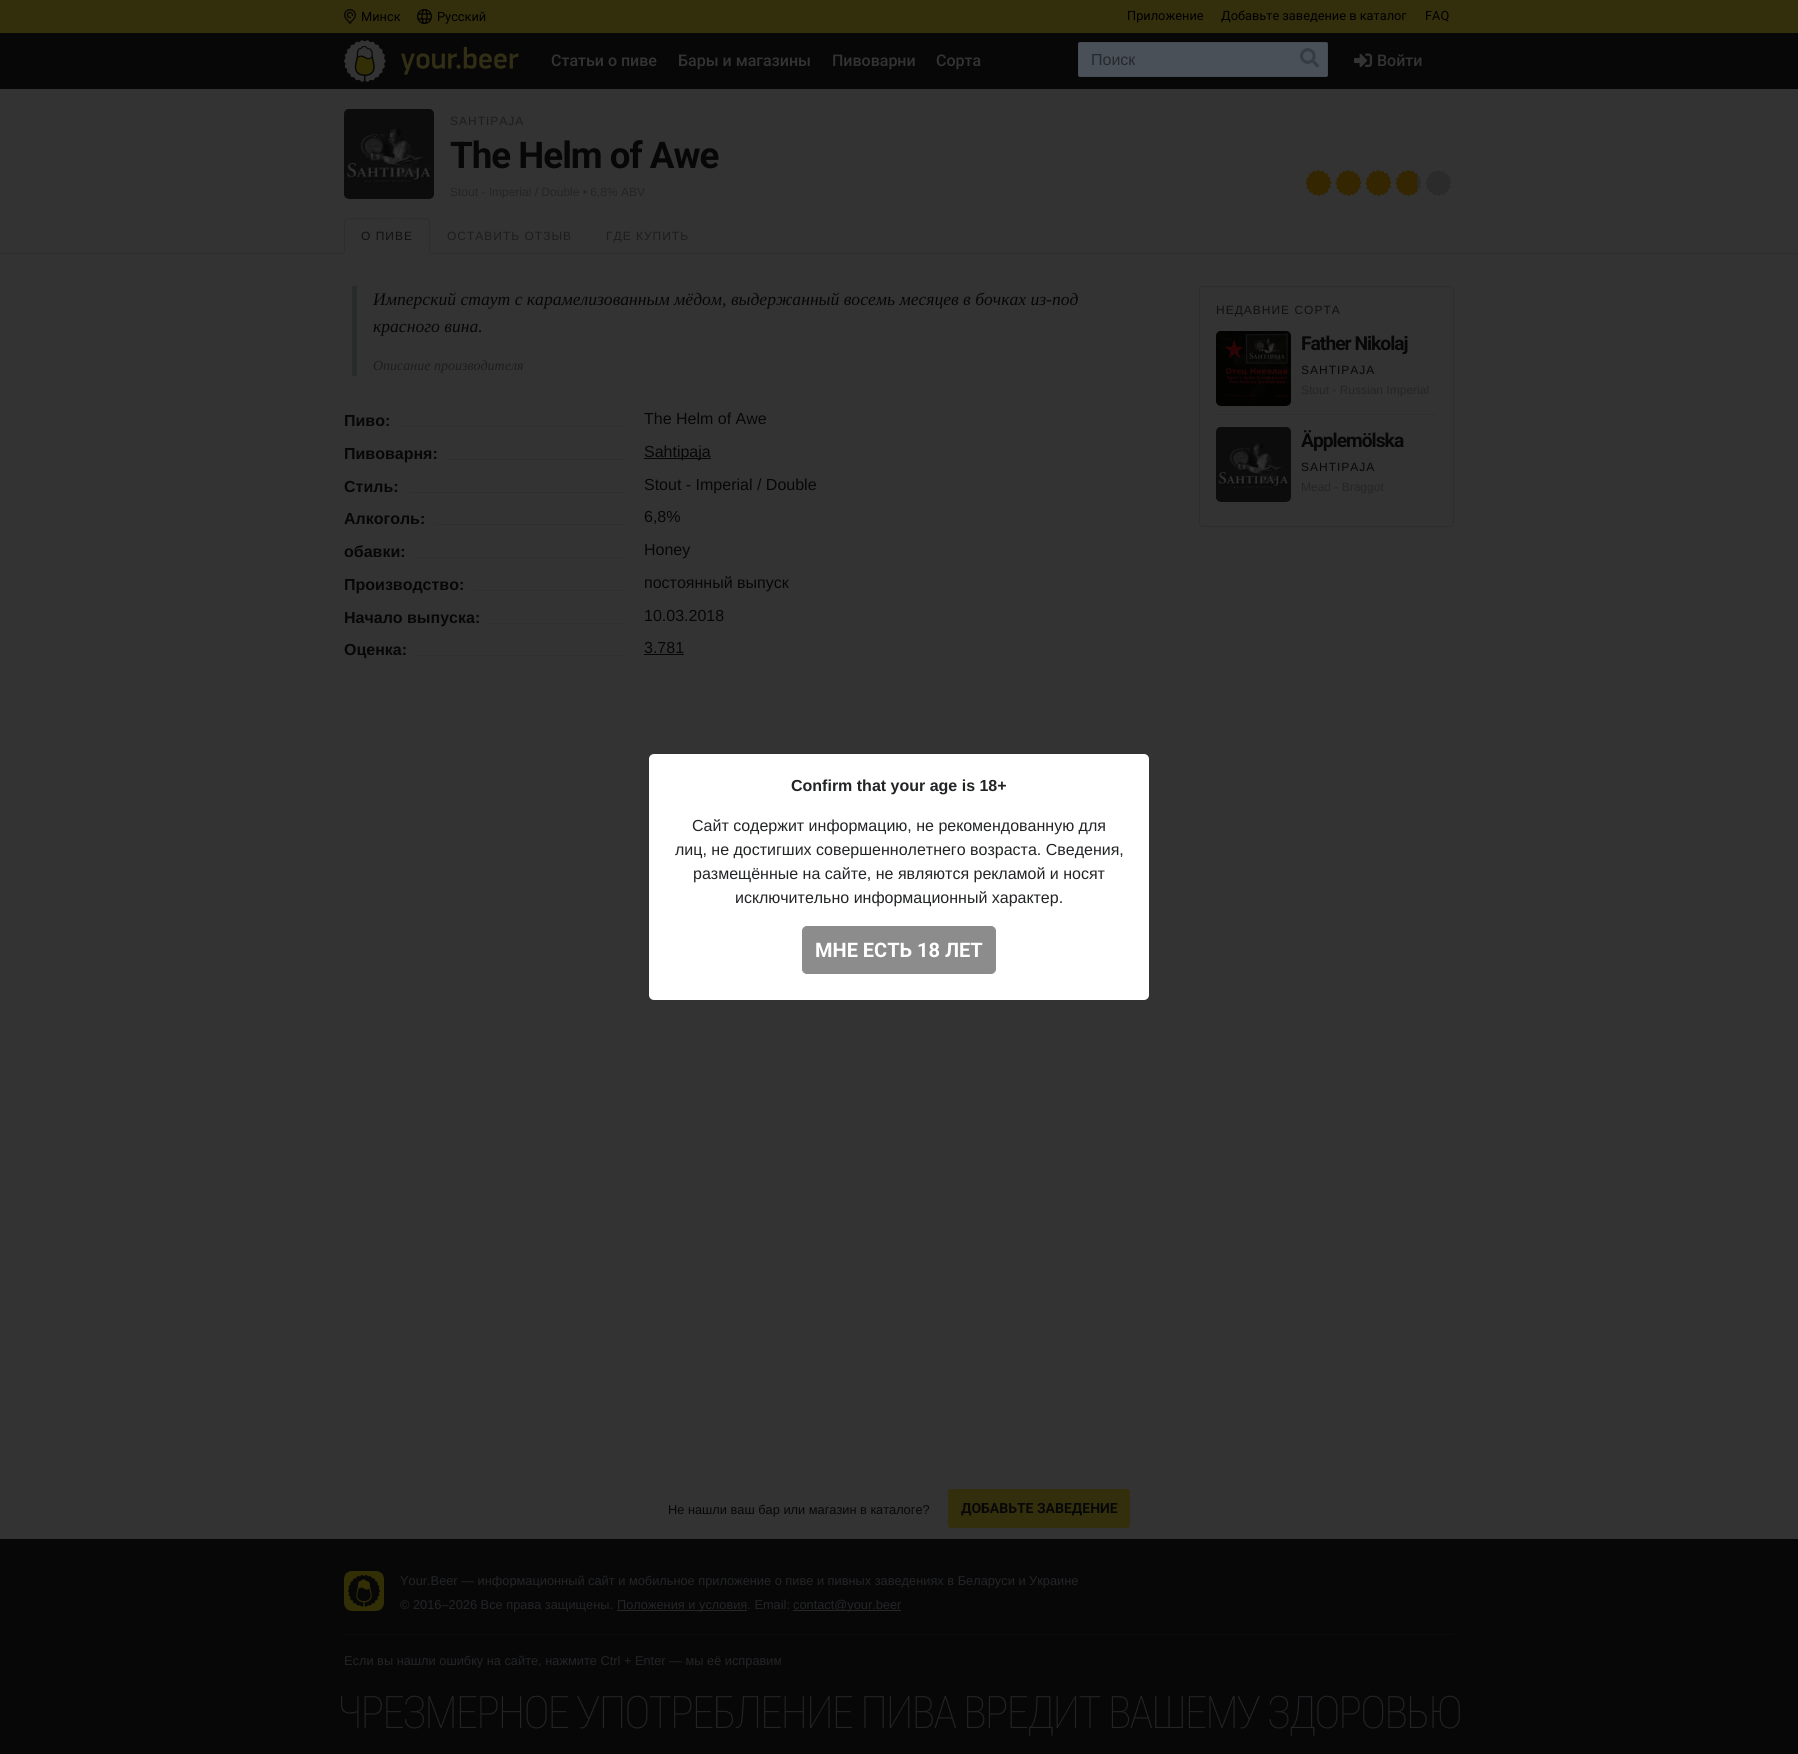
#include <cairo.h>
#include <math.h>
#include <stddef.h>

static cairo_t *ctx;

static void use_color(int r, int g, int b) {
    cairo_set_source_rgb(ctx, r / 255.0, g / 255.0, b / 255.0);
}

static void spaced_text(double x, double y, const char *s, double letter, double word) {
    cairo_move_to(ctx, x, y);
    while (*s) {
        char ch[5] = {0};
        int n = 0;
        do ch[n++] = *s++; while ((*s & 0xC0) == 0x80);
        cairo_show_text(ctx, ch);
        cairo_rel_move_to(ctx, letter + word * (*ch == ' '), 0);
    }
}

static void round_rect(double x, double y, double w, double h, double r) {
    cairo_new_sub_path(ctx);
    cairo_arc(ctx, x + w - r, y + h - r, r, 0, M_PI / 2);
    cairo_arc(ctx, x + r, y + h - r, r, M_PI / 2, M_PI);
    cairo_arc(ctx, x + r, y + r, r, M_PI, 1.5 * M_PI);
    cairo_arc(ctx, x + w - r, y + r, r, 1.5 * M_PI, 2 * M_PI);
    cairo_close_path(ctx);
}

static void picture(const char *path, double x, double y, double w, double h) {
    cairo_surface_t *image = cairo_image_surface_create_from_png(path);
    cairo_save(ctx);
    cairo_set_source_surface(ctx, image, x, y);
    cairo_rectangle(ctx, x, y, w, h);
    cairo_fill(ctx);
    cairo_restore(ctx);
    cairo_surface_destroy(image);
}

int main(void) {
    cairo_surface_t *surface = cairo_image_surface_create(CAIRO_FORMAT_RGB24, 1798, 1754);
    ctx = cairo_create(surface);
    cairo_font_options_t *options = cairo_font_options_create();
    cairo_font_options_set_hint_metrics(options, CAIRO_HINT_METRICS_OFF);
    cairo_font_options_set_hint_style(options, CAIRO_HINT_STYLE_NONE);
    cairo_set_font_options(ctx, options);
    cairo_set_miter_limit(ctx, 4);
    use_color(51, 51, 51);
    cairo_paint(ctx);
    use_color(51, 46, 12);
    cairo_rectangle(ctx, 0, 0, 1798, 33);
    cairo_fill(ctx);
    picture("img1.png", 344, 9, 12, 15);
    cairo_select_font_face(ctx, "Roboto", CAIRO_FONT_SLANT_NORMAL, CAIRO_FONT_WEIGHT_NORMAL);
    cairo_set_font_size(ctx, 12.8);
    use_color(0, 0, 0);
    cairo_move_to(ctx, 361, 21);
    cairo_show_text(ctx, "Минск");
    picture("img2.png", 417, 9, 15, 15);
    cairo_move_to(ctx, 437, 21);
    cairo_show_text(ctx, "Русский");
    cairo_move_to(ctx, 1127, 20);
    cairo_show_text(ctx, "Приложение");
    cairo_move_to(ctx, 1221, 20);
    cairo_show_text(ctx, "Добавьте заведение в каталог");
    cairo_move_to(ctx, 1425, 20);
    cairo_show_text(ctx, "FAQ");
    use_color(7, 7, 7);
    cairo_rectangle(ctx, 0, 33, 1798, 56);
    cairo_fill(ctx);
    picture("img3.png", 344, 40, 175, 42);
    cairo_select_font_face(ctx, "Roboto Medium", CAIRO_FONT_SLANT_NORMAL, CAIRO_FONT_WEIGHT_NORMAL);
    cairo_set_font_size(ctx, 16);
    use_color(51, 51, 51);
    cairo_move_to(ctx, 551, 66);
    cairo_show_text(ctx, "Статьи о пиве");
    cairo_move_to(ctx, 678, 66);
    cairo_show_text(ctx, "Бары и магазины");
    cairo_move_to(ctx, 832, 66);
    cairo_show_text(ctx, "Пивоварни");
    cairo_move_to(ctx, 936, 66);
    cairo_show_text(ctx, "Сорта");
    use_color(73, 80, 87);
    round_rect(1078, 42, 250, 35, 2);
    cairo_fill(ctx);
    round_rect(1078.5, 42.5, 249, 34, 1.5);
    cairo_set_source_rgba(ctx, 0.129, 0.145, 0.161, 0.1);
    cairo_set_line_width(ctx, 1);
    cairo_stroke(ctx);
    cairo_select_font_face(ctx, "Liberation Sans", CAIRO_FONT_SLANT_NORMAL, CAIRO_FONT_WEIGHT_NORMAL);
    use_color(37, 40, 44);
    cairo_move_to(ctx, 1091, 65);
    cairo_show_text(ctx, "Поиск");
    picture("img4.png", 1300, 48, 19, 20);
    picture("img5.png", 1354, 53, 18, 15);
    cairo_select_font_face(ctx, "Roboto Medium", CAIRO_FONT_SLANT_NORMAL, CAIRO_FONT_WEIGHT_NORMAL);
    use_color(51, 51, 51);
    cairo_move_to(ctx, 1377, 66);
    cairo_show_text(ctx, "Войти");
    picture("img6.png", 344, 109, 90, 90);
    cairo_select_font_face(ctx, "Liberation Sans", CAIRO_FONT_SLANT_NORMAL, CAIRO_FONT_WEIGHT_NORMAL);
    cairo_set_font_size(ctx, 12);
    use_color(28, 28, 28);
    spaced_text(450, 125, "SAHTIPAJA", 1, 0);
    cairo_select_font_face(ctx, "Roboto", CAIRO_FONT_SLANT_NORMAL, CAIRO_FONT_WEIGHT_BOLD);
    cairo_set_font_size(ctx, 36.75);
    use_color(7, 7, 8);
    spaced_text(450, 168, "The Helm of Awe", -1, 0);
    cairo_select_font_face(ctx, "Liberation Sans", CAIRO_FONT_SLANT_NORMAL, CAIRO_FONT_WEIGHT_NORMAL);
    cairo_set_font_size(ctx, 12);
    use_color(35, 36, 38);
    cairo_move_to(ctx, 450, 196);
    cairo_show_text(ctx, "Stout - Imperial / Double • 6,8% ABV");
    picture("img7.png", 1305, 170, 147, 26);
    picture("img8.png", 1305, 170, 112, 26);
    use_color(44, 45, 46);
    cairo_rectangle(ctx, 0, 253, 1798, 1);
    cairo_fill(ctx);
    use_color(51, 51, 51);
    cairo_new_path(ctx);
    cairo_move_to(ctx, 348, 218);
    cairo_line_to(ctx, 426, 218);
    cairo_curve_to(ctx, 428, 218, 430, 220, 430, 222);
    cairo_line_to(ctx, 430, 254);
    cairo_line_to(ctx, 344, 254);
    cairo_line_to(ctx, 344, 222);
    cairo_curve_to(ctx, 344, 220, 346, 218, 348, 218);
    cairo_close_path(ctx);
    cairo_fill(ctx);
    use_color(44, 45, 46);
    cairo_new_path(ctx);
    cairo_move_to(ctx, 348, 218);
    cairo_line_to(ctx, 345, 219);
    cairo_line_to(ctx, 346, 220);
    cairo_line_to(ctx, 348, 219);
    cairo_line_to(ctx, 361, 219);
    cairo_curve_to(ctx, 368, 219, 426, 218, 428, 220);
    cairo_line_to(ctx, 429, 219);
    cairo_line_to(ctx, 426, 218);
    cairo_close_path(ctx);
    cairo_fill(ctx);
    cairo_new_path(ctx);
    cairo_move_to(ctx, 430, 254);
    cairo_line_to(ctx, 430, 222);
    cairo_curve_to(ctx, 430, 221, 429.5, 220, 429, 219);
    cairo_line_to(ctx, 428, 220);
    cairo_curve_to(ctx, 429, 220, 429, 221, 429, 222);
    cairo_line_to(ctx, 429, 253);
    cairo_close_path(ctx);
    cairo_fill(ctx);
    cairo_new_path(ctx);
    cairo_move_to(ctx, 344, 254);
    cairo_line_to(ctx, 345, 253);
    cairo_line_to(ctx, 345, 222);
    cairo_curve_to(ctx, 345, 221, 345, 220, 346, 220);
    cairo_line_to(ctx, 345, 219);
    cairo_curve_to(ctx, 344.5, 220, 344, 221, 344, 222);
    cairo_close_path(ctx);
    cairo_fill(ctx);
    use_color(15, 16, 17);
    spaced_text(361, 240, "О ПИВЕ", 1, 0);
    use_color(28, 28, 28);
    spaced_text(447, 240, "ОСТАВИТЬ ОТЗЫВ", 1, 0);
    spaced_text(606, 240, "ГДЕ КУПИТЬ", 1, 0);
    use_color(41, 42, 44);
    cairo_rectangle(ctx, 352, 286, 5, 90);
    cairo_fill(ctx);
    cairo_select_font_face(ctx, "Liberation Serif", CAIRO_FONT_SLANT_ITALIC, CAIRO_FONT_WEIGHT_NORMAL);
    cairo_set_font_size(ctx, 17.6);
    use_color(7, 7, 8);
    cairo_move_to(ctx, 373, 305);
    cairo_show_text(ctx, "Имперский стаут с карамелизованным мёдом, выдержанный восемь месяцев в бочках из-под");
    cairo_move_to(ctx, 373, 332);
    cairo_show_text(ctx, "красного вина.");
    cairo_set_font_size(ctx, 14);
    use_color(28, 28, 28);
    cairo_move_to(ctx, 373, 370);
    cairo_show_text(ctx, "Описание производителя");
    cairo_select_font_face(ctx, "Liberation Sans", CAIRO_FONT_SLANT_NORMAL, CAIRO_FONT_WEIGHT_BOLD);
    cairo_set_font_size(ctx, 16);
    use_color(7, 7, 8);
    cairo_move_to(ctx, 344, 426);
    cairo_show_text(ctx, "Пиво:");
    use_color(47, 47, 48);
    cairo_rectangle(ctx, 400, 426, 224, 1);
    cairo_fill(ctx);
    cairo_select_font_face(ctx, "Liberation Sans", CAIRO_FONT_SLANT_NORMAL, CAIRO_FONT_WEIGHT_NORMAL);
    use_color(7, 7, 8);
    cairo_move_to(ctx, 644, 424);
    cairo_show_text(ctx, "The Helm of Awe");
    cairo_select_font_face(ctx, "Liberation Sans", CAIRO_FONT_SLANT_NORMAL, CAIRO_FONT_WEIGHT_BOLD);
    cairo_move_to(ctx, 344, 459);
    cairo_show_text(ctx, "Пивоварня:");
    use_color(47, 47, 48);
    cairo_rectangle(ctx, 448, 459, 176, 1);
    cairo_fill(ctx);
    use_color(7, 7, 8);
    cairo_rectangle(ctx, 644, 458, 67, 1);
    cairo_fill(ctx);
    cairo_select_font_face(ctx, "Liberation Sans", CAIRO_FONT_SLANT_NORMAL, CAIRO_FONT_WEIGHT_NORMAL);
    cairo_move_to(ctx, 644, 457);
    cairo_show_text(ctx, "Sahtipaja");
    cairo_select_font_face(ctx, "Liberation Sans", CAIRO_FONT_SLANT_NORMAL, CAIRO_FONT_WEIGHT_BOLD);
    cairo_move_to(ctx, 344, 492);
    cairo_show_text(ctx, "Стиль:");
    use_color(47, 47, 48);
    cairo_rectangle(ctx, 409, 492, 215, 1);
    cairo_fill(ctx);
    cairo_select_font_face(ctx, "Liberation Sans", CAIRO_FONT_SLANT_NORMAL, CAIRO_FONT_WEIGHT_NORMAL);
    use_color(7, 7, 8);
    cairo_move_to(ctx, 644, 490);
    cairo_show_text(ctx, "Stout - Imperial / Double");
    cairo_select_font_face(ctx, "Liberation Sans", CAIRO_FONT_SLANT_NORMAL, CAIRO_FONT_WEIGHT_BOLD);
    cairo_move_to(ctx, 344, 524);
    cairo_show_text(ctx, "Алкоголь:");
    use_color(47, 47, 48);
    cairo_rectangle(ctx, 435, 524, 189, 1);
    cairo_fill(ctx);
    cairo_select_font_face(ctx, "Liberation Sans", CAIRO_FONT_SLANT_NORMAL, CAIRO_FONT_WEIGHT_NORMAL);
    use_color(7, 7, 8);
    cairo_move_to(ctx, 644, 522);
    cairo_show_text(ctx, "6,8%");
    cairo_select_font_face(ctx, "Liberation Sans", CAIRO_FONT_SLANT_NORMAL, CAIRO_FONT_WEIGHT_BOLD);
    cairo_move_to(ctx, 344, 557);
    cairo_show_text(ctx, "обавки:");
    use_color(47, 47, 48);
    cairo_rectangle(ctx, 416, 557, 208, 1);
    cairo_fill(ctx);
    cairo_select_font_face(ctx, "Liberation Sans", CAIRO_FONT_SLANT_NORMAL, CAIRO_FONT_WEIGHT_NORMAL);
    use_color(7, 7, 8);
    cairo_move_to(ctx, 644, 555);
    cairo_show_text(ctx, "Honey");
    cairo_select_font_face(ctx, "Liberation Sans", CAIRO_FONT_SLANT_NORMAL, CAIRO_FONT_WEIGHT_BOLD);
    cairo_move_to(ctx, 344, 590);
    cairo_show_text(ctx, "Производство:");
    use_color(47, 47, 48);
    cairo_rectangle(ctx, 474, 590, 150, 1);
    cairo_fill(ctx);
    cairo_select_font_face(ctx, "Liberation Sans", CAIRO_FONT_SLANT_NORMAL, CAIRO_FONT_WEIGHT_NORMAL);
    use_color(7, 7, 8);
    cairo_move_to(ctx, 644, 588);
    cairo_show_text(ctx, "постоянный выпуск");
    cairo_select_font_face(ctx, "Liberation Sans", CAIRO_FONT_SLANT_NORMAL, CAIRO_FONT_WEIGHT_BOLD);
    cairo_move_to(ctx, 344, 623);
    cairo_show_text(ctx, "Начало выпуска:");
    use_color(47, 47, 48);
    cairo_rectangle(ctx, 490, 623, 134, 1);
    cairo_fill(ctx);
    cairo_select_font_face(ctx, "Liberation Sans", CAIRO_FONT_SLANT_NORMAL, CAIRO_FONT_WEIGHT_NORMAL);
    use_color(7, 7, 8);
    cairo_move_to(ctx, 644, 621);
    cairo_show_text(ctx, "10.03.2018");
    cairo_select_font_face(ctx, "Liberation Sans", CAIRO_FONT_SLANT_NORMAL, CAIRO_FONT_WEIGHT_BOLD);
    cairo_move_to(ctx, 344, 655);
    cairo_show_text(ctx, "Оценка:");
    use_color(47, 47, 48);
    cairo_rectangle(ctx, 417, 655, 207, 1);
    cairo_fill(ctx);
    cairo_select_font_face(ctx, "Liberation Sans", CAIRO_FONT_SLANT_NORMAL, CAIRO_FONT_WEIGHT_NORMAL);
    use_color(7, 7, 8);
    cairo_move_to(ctx, 644, 653);
    cairo_show_text(ctx, "3.781");
    cairo_rectangle(ctx, 644, 654, 40, 1);
    cairo_fill(ctx);
    round_rect(1199.5, 286.5, 254, 240, 3.5);
    use_color(44, 45, 46);
    cairo_stroke(ctx);
    cairo_set_font_size(ctx, 12);
    use_color(15, 16, 17);
    spaced_text(1216, 314, "НЕДАВНИЕ СОРТА", 1, 0);
    use_color(47, 47, 48);
    cairo_rectangle(ctx, 1216, 414, 221, 1);
    cairo_fill(ctx);
    picture("img9.png", 1216, 331, 75, 75);
    cairo_select_font_face(ctx, "Roboto", CAIRO_FONT_SLANT_NORMAL, CAIRO_FONT_WEIGHT_BOLD);
    cairo_set_font_size(ctx, 19.25);
    use_color(7, 7, 8);
    spaced_text(1301, 350, "Father Nikolaj", -1, 0);
    cairo_select_font_face(ctx, "Liberation Sans", CAIRO_FONT_SLANT_NORMAL, CAIRO_FONT_WEIGHT_NORMAL);
    cairo_set_font_size(ctx, 12);
    spaced_text(1301, 374, "SAHTIPAJA", 1, 0);
    use_color(35, 36, 38);
    cairo_move_to(ctx, 1301, 394);
    cairo_show_text(ctx, "Stout - Russian Imperial");
    picture("img10.png", 1216, 427, 75, 75);
    cairo_select_font_face(ctx, "Roboto", CAIRO_FONT_SLANT_NORMAL, CAIRO_FONT_WEIGHT_BOLD);
    cairo_set_font_size(ctx, 19.25);
    use_color(7, 7, 8);
    spaced_text(1301, 447, "Äpplemölska", -1, 0);
    cairo_select_font_face(ctx, "Liberation Sans", CAIRO_FONT_SLANT_NORMAL, CAIRO_FONT_WEIGHT_NORMAL);
    cairo_set_font_size(ctx, 12);
    spaced_text(1301, 471, "SAHTIPAJA", 1, 0);
    use_color(35, 36, 38);
    cairo_move_to(ctx, 1301, 491);
    cairo_show_text(ctx, "Mead - Braggot");
    cairo_set_font_size(ctx, 12.8);
    use_color(7, 7, 8);
    cairo_move_to(ctx, 668, 1514);
    cairo_show_text(ctx, "Не нашли ваш бар или магазин в каталоге?");
    use_color(51, 46, 12);
    round_rect(948.5, 1489.5, 181, 38, 2.5);
    cairo_fill_preserve(ctx);
    cairo_stroke(ctx);
    cairo_select_font_face(ctx, "Roboto", CAIRO_FONT_SLANT_NORMAL, CAIRO_FONT_WEIGHT_BOLD);
    cairo_set_font_size(ctx, 14);
    use_color(7, 7, 8);
    cairo_move_to(ctx, 961, 1513);
    cairo_show_text(ctx, "ДОБАВЬТЕ ЗАВЕДЕНИЕ");
    cairo_rectangle(ctx, 0, 1539, 1798, 215);
    cairo_fill(ctx);
    picture("img11.png", 344, 1571, 40, 40);
    cairo_select_font_face(ctx, "Liberation Sans", CAIRO_FONT_SLANT_NORMAL, CAIRO_FONT_WEIGHT_NORMAL);
    cairo_set_font_size(ctx, 12.8);
    use_color(35, 36, 38);
    cairo_move_to(ctx, 400, 1585);
    cairo_show_text(ctx, "Your.Beer — информационный сайт и мобильное приложение о пиве и пивных заведениях в Беларуси и Украине");
    cairo_move_to(ctx, 400, 1609);
    cairo_show_text(ctx, "© 2016–2026 Все права защищены.");
    use_color(38, 38, 38);
    cairo_rectangle(ctx, 617, 1610, 130, 1);
    cairo_fill(ctx);
    use_color(35, 36, 38);
    cairo_move_to(ctx, 617, 1609);
    cairo_show_text(ctx, "Положения и условия. Email:");
    use_color(38, 38, 38);
    cairo_rectangle(ctx, 793, 1610, 108, 1);
    cairo_fill(ctx);
    use_color(35, 36, 38);
    cairo_move_to(ctx, 793, 1609);
    cairo_show_text(ctx, "contact@your.beer");
    use_color(11, 12, 12);
    cairo_rectangle(ctx, 344, 1634, 1110, 1);
    cairo_fill(ctx);
    use_color(35, 36, 38);
    cairo_move_to(ctx, 344, 1665);
    cairo_show_text(ctx, "Если вы нашли ошибку на сайте, нажмите Ctrl + Enter — мы её исправим");
    cairo_select_font_face(ctx, "Roboto Condensed Thin", CAIRO_FONT_SLANT_NORMAL, CAIRO_FONT_WEIGHT_NORMAL);
    cairo_set_font_size(ctx, 44.8);
    spaced_text(337, 1728, "ЧРЕЗМЕРНОЕ УПОТРЕБЛЕНИЕ ПИВА ВРЕДИТ ВАШЕМУ ЗДОРОВЬЮ", -2, 0);
    use_color(255, 255, 255);
    round_rect(649, 754, 500, 246, 5);
    cairo_fill(ctx);
    cairo_select_font_face(ctx, "Liberation Sans", CAIRO_FONT_SLANT_NORMAL, CAIRO_FONT_WEIGHT_BOLD);
    cairo_set_font_size(ctx, 16);
    use_color(35, 36, 38);
    cairo_move_to(ctx, 791, 791);
    cairo_show_text(ctx, "Confirm that your age is 18+");
    cairo_select_font_face(ctx, "Liberation Sans", CAIRO_FONT_SLANT_NORMAL, CAIRO_FONT_WEIGHT_NORMAL);
    cairo_move_to(ctx, 692, 831);
    cairo_show_text(ctx, "Сайт содержит информацию, не рекомендованную для");
    cairo_move_to(ctx, 675, 855);
    cairo_show_text(ctx, "лиц, не достигших совершеннолетнего возраста. Сведения,");
    cairo_move_to(ctx, 693, 879);
    cairo_show_text(ctx, "размещённые на сайте, не являются рекламой и носят");
    cairo_move_to(ctx, 735, 903);
    cairo_show_text(ctx, "исключительно информационный характер.");
    use_color(140, 140, 140);
    round_rect(802.5, 926.5, 193, 47, 4.5);
    cairo_fill_preserve(ctx);
    cairo_stroke(ctx);
    cairo_select_font_face(ctx, "Roboto", CAIRO_FONT_SLANT_NORMAL, CAIRO_FONT_WEIGHT_BOLD);
    cairo_set_font_size(ctx, 20);
    use_color(255, 255, 255);
    cairo_move_to(ctx, 815, 957);
    cairo_show_text(ctx, "МНЕ ЕСТЬ 18 ЛЕТ");
    cairo_surface_write_to_png(surface, "result.png");
    cairo_font_options_destroy(options);
    cairo_destroy(ctx);
    cairo_surface_destroy(surface);
    return 0;
}
